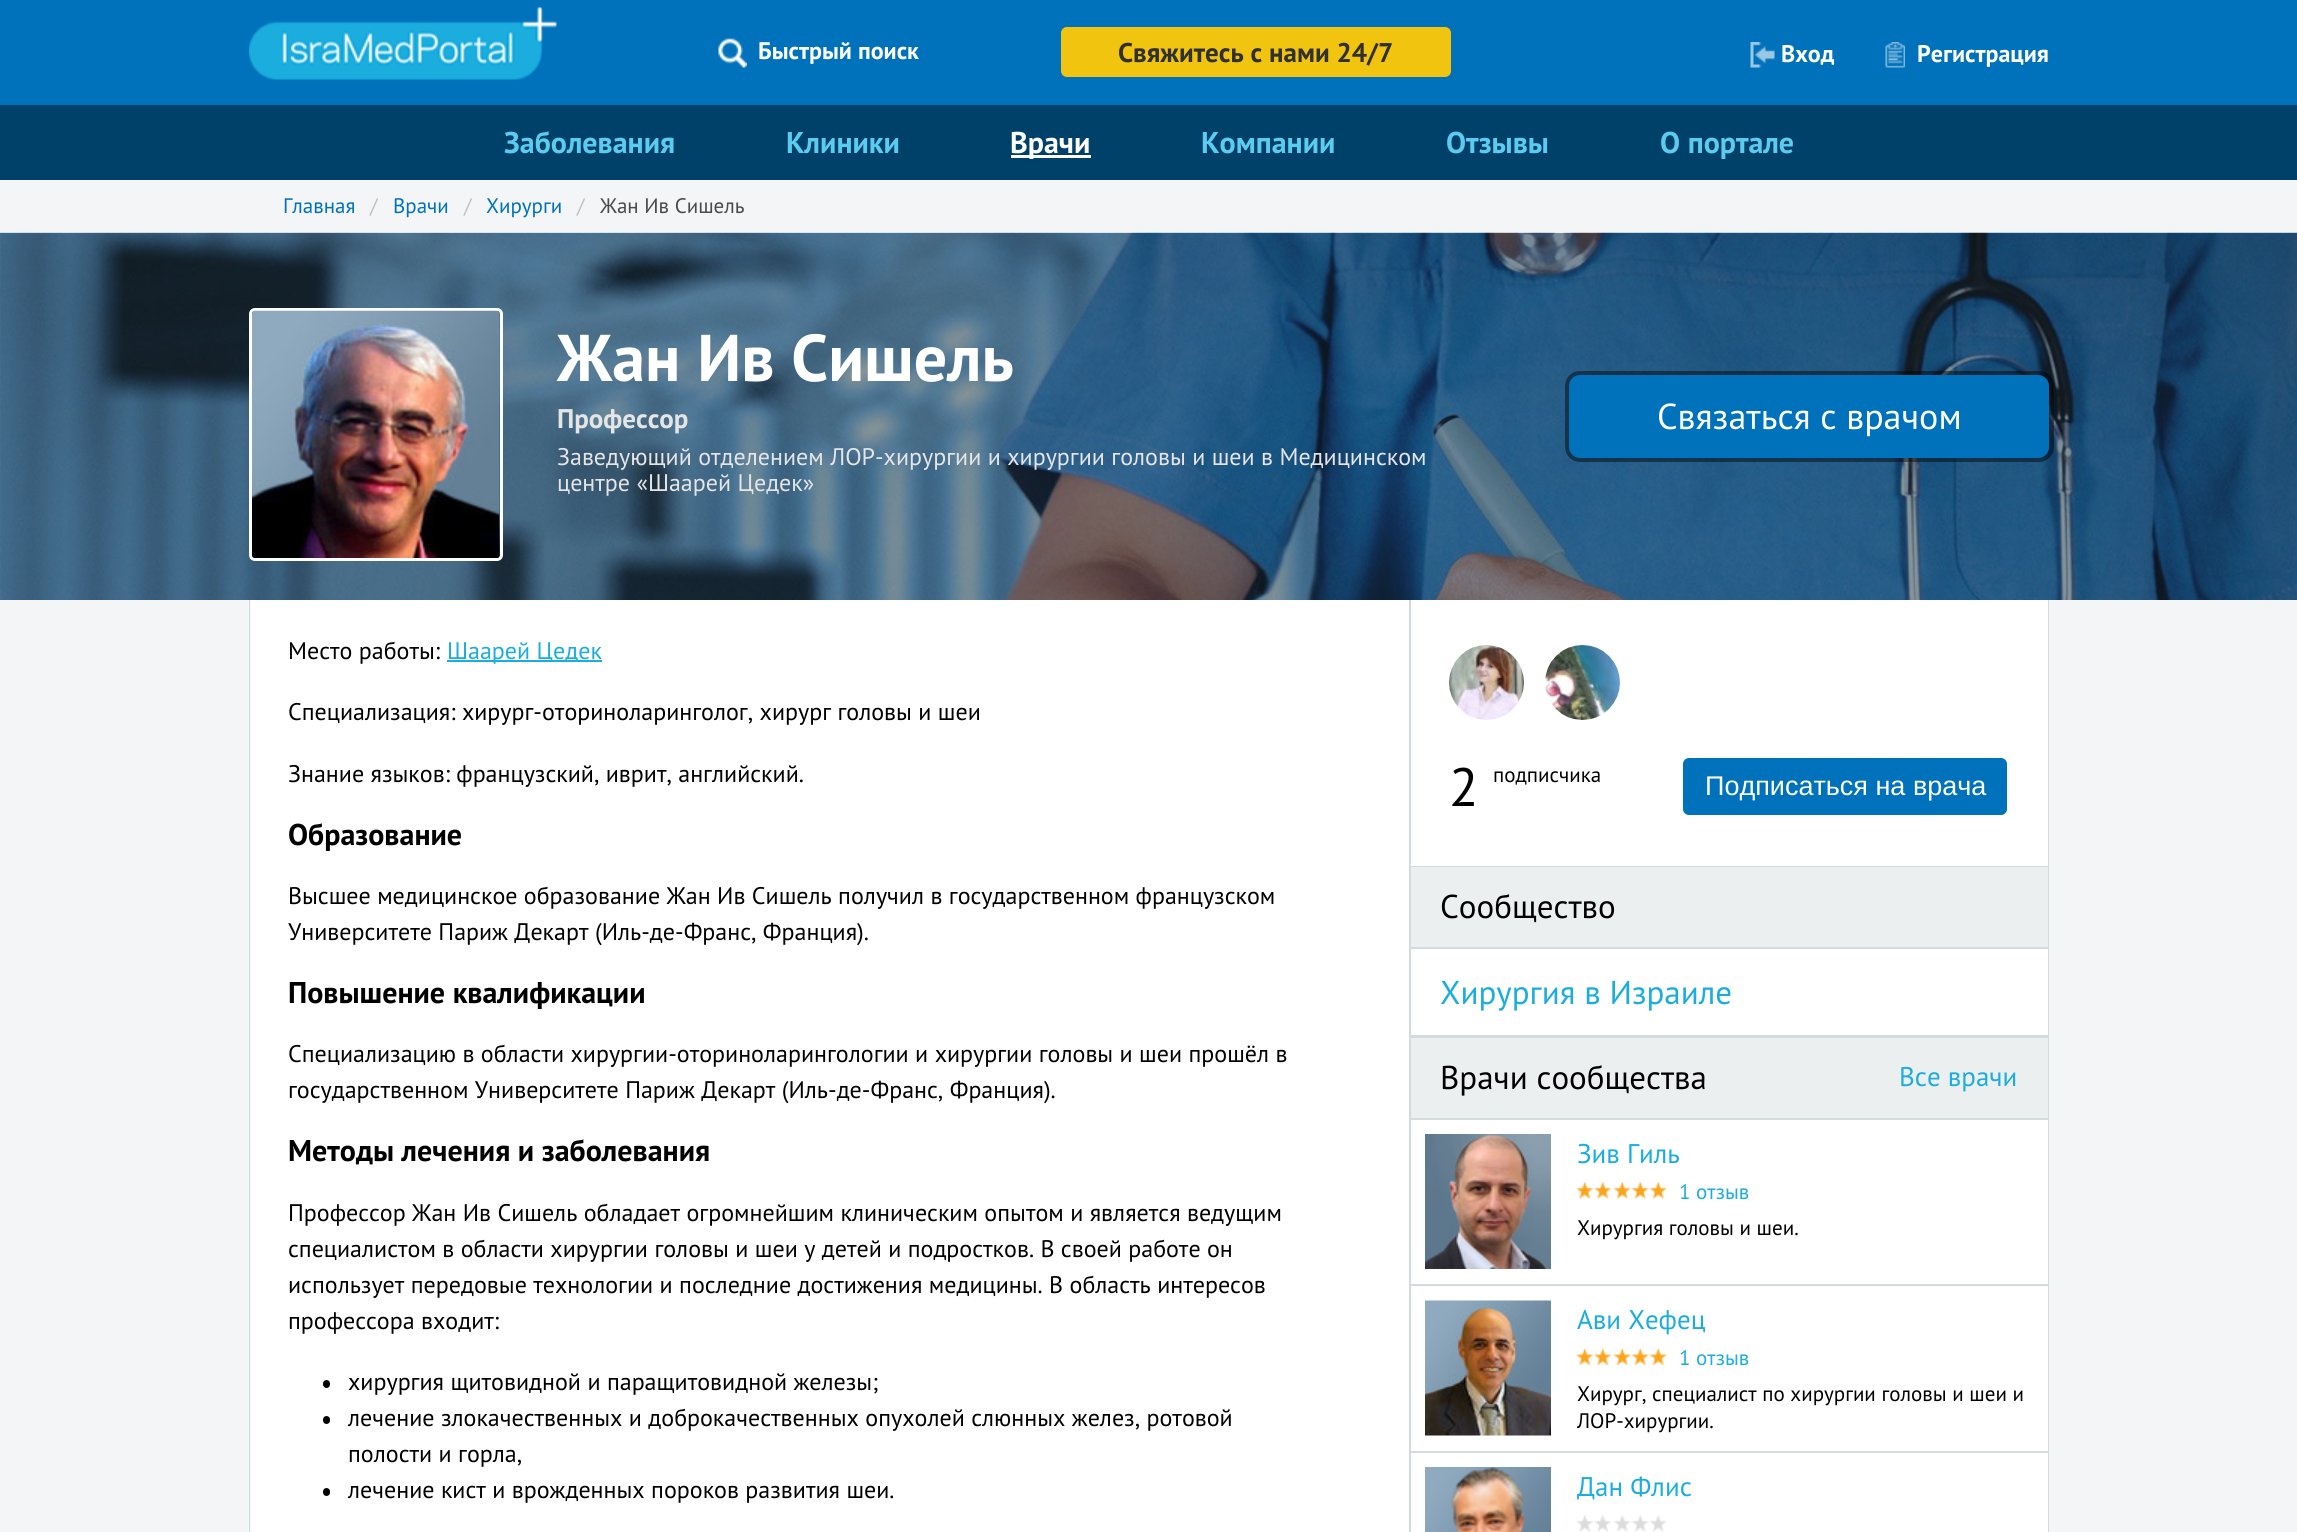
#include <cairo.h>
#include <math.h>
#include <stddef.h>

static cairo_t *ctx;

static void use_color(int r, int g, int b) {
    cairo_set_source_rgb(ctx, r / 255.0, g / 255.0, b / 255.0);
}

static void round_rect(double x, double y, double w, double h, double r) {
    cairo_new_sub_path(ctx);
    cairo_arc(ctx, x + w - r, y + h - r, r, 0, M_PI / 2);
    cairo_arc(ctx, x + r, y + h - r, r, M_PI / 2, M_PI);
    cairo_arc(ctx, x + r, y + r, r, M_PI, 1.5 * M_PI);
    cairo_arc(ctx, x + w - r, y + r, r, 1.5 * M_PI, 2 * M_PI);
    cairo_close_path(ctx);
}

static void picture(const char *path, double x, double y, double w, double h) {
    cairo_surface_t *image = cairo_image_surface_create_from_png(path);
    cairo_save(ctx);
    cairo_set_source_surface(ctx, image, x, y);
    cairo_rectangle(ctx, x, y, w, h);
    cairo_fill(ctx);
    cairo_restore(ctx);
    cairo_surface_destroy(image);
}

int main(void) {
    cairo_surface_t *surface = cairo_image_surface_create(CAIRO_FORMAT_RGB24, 2297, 1532);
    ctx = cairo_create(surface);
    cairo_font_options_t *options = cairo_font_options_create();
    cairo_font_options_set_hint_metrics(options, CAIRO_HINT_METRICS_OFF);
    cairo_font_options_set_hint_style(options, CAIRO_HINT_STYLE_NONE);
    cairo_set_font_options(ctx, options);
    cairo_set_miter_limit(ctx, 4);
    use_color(0, 65, 106);
    cairo_paint(ctx);
    use_color(0, 114, 187);
    cairo_rectangle(ctx, 0, 0, 2297, 105);
    cairo_fill(ctx);
    picture("img1.png", 249, 7, 308, 73);
    picture("img2.png", 718, 38, 29, 30);
    cairo_select_font_face(ctx, "PT Sans", CAIRO_FONT_SLANT_NORMAL, CAIRO_FONT_WEIGHT_BOLD);
    cairo_set_font_size(ctx, 24);
    use_color(255, 255, 255);
    cairo_move_to(ctx, 758, 59);
    cairo_show_text(ctx, "Быстрый поиск");
    use_color(241, 196, 15);
    round_rect(1061, 27, 390, 50, 6);
    cairo_fill(ctx);
    cairo_set_font_size(ctx, 27);
    use_color(48, 48, 48);
    cairo_move_to(ctx, 1118, 62);
    cairo_show_text(ctx, "Свяжитесь с нами 24/7");
    picture("img3.png", 1750, 42, 25, 26);
    cairo_set_font_size(ctx, 24);
    use_color(255, 255, 255);
    cairo_move_to(ctx, 1781, 62);
    cairo_show_text(ctx, "Вход");
    picture("img4.png", 1885, 42, 20, 26);
    cairo_move_to(ctx, 1917, 62);
    cairo_show_text(ctx, "Регистрация");
    cairo_set_font_size(ctx, 30);
    use_color(92, 203, 240);
    cairo_move_to(ctx, 504, 153);
    cairo_show_text(ctx, "Заболевания");
    cairo_move_to(ctx, 786, 153);
    cairo_show_text(ctx, "Клиники");
    use_color(255, 255, 255);
    cairo_rectangle(ctx, 1011, 155, 80, 3);
    cairo_fill(ctx);
    cairo_move_to(ctx, 1010, 153);
    cairo_show_text(ctx, "Врачи");
    use_color(92, 203, 240);
    cairo_move_to(ctx, 1201, 153);
    cairo_show_text(ctx, "Компании");
    cairo_move_to(ctx, 1446, 153);
    cairo_show_text(ctx, "Отзывы");
    cairo_move_to(ctx, 1660, 153);
    cairo_show_text(ctx, "О портале");
    use_color(243, 245, 246);
    cairo_rectangle(ctx, 0, 180, 2297, 53);
    cairo_fill(ctx);
    cairo_select_font_face(ctx, "PT Sans", CAIRO_FONT_SLANT_NORMAL, CAIRO_FONT_WEIGHT_NORMAL);
    cairo_set_font_size(ctx, 21);
    use_color(0, 114, 187);
    cairo_move_to(ctx, 283, 213);
    cairo_show_text(ctx, "Главная");
    use_color(193, 193, 193);
    cairo_move_to(ctx, 370, 213);
    cairo_show_text(ctx, "/");
    use_color(0, 114, 187);
    cairo_move_to(ctx, 393, 213);
    cairo_show_text(ctx, "Врачи");
    use_color(193, 193, 193);
    cairo_move_to(ctx, 464, 213);
    cairo_show_text(ctx, "/");
    use_color(0, 114, 187);
    cairo_move_to(ctx, 486, 213);
    cairo_show_text(ctx, "Хирурги");
    use_color(193, 193, 193);
    cairo_move_to(ctx, 577, 213);
    cairo_show_text(ctx, "/");
    use_color(74, 74, 74);
    cairo_move_to(ctx, 600, 213);
    cairo_show_text(ctx, "Жан Ив Сишель");
    picture("img5.png", 0, 232, 2297, 368);
    round_rect(250.5, 309.5, 251, 250, 4.5);
    use_color(255, 255, 255);
    cairo_set_line_width(ctx, 3);
    cairo_stroke(ctx);
    picture("img6.png", 252, 310, 248, 248);
    cairo_select_font_face(ctx, "PT Sans", CAIRO_FONT_SLANT_NORMAL, CAIRO_FONT_WEIGHT_BOLD);
    cairo_set_font_size(ctx, 66);
    cairo_move_to(ctx, 557, 381);
    cairo_show_text(ctx, "Жан Ив Сишель");
    cairo_set_font_size(ctx, 27);
    use_color(229, 229, 229);
    cairo_move_to(ctx, 557, 428);
    cairo_show_text(ctx, "Профессор");
    cairo_select_font_face(ctx, "PT Sans", CAIRO_FONT_SLANT_NORMAL, CAIRO_FONT_WEIGHT_NORMAL);
    cairo_set_font_size(ctx, 24);
    cairo_move_to(ctx, 557, 465);
    cairo_show_text(ctx, "Заведующий отделением ЛОР-хирургии и хирургии головы и шеи в Медицинском");
    cairo_move_to(ctx, 557, 491);
    cairo_show_text(ctx, "центре «Шаарей Цедек»");
    round_rect(1567.5, 373.5, 484, 86, 12.5);
    cairo_set_source_rgba(ctx, 0, 0, 0, 0.45);
    cairo_set_line_width(ctx, 5);
    cairo_stroke(ctx);
    use_color(0, 114, 187);
    round_rect(1569, 375, 480, 83, 11);
    cairo_fill(ctx);
    cairo_set_font_size(ctx, 36);
    use_color(255, 255, 255);
    cairo_move_to(ctx, 1657, 429);
    cairo_show_text(ctx, "Связаться с врачом");
    use_color(243, 245, 246);
    cairo_rectangle(ctx, 0, 600, 2297, 932);
    cairo_fill(ctx);
    use_color(255, 255, 255);
    cairo_rectangle(ctx, 251, 600, 1797, 932);
    cairo_fill(ctx);
    use_color(212, 219, 221);
    cairo_set_fill_rule(ctx, CAIRO_FILL_RULE_EVEN_ODD);
    cairo_new_path(ctx);
    cairo_move_to(ctx, 249, 600);
    cairo_line_to(ctx, 2049, 600);
    cairo_line_to(ctx, 2049, 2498);
    cairo_curve_to(ctx, 2049, 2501, 2046, 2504, 2043, 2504);
    cairo_line_to(ctx, 255, 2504);
    cairo_curve_to(ctx, 252, 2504, 249, 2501, 249, 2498);
    cairo_close_path(ctx);
    cairo_move_to(ctx, 250, 600);
    cairo_line_to(ctx, 2048, 600);
    cairo_line_to(ctx, 2048, 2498);
    cairo_curve_to(ctx, 2048, 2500, 2045, 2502, 2043, 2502);
    cairo_line_to(ctx, 255, 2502);
    cairo_curve_to(ctx, 253, 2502, 250, 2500, 250, 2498);
    cairo_close_path(ctx);
    cairo_fill(ctx);
    cairo_set_font_size(ctx, 24);
    use_color(0, 0, 0);
    cairo_move_to(ctx, 288, 659);
    cairo_show_text(ctx, "Место работы:");
    use_color(27, 173, 222);
    cairo_rectangle(ctx, 447, 660, 155, 2);
    cairo_fill(ctx);
    cairo_move_to(ctx, 447, 659);
    cairo_show_text(ctx, "Шаарей Цедек");
    use_color(0, 0, 0);
    cairo_move_to(ctx, 288, 720);
    cairo_show_text(ctx, "Специализация: хирург-оториноларинголог, хирург головы и шеи");
    cairo_move_to(ctx, 288, 782);
    cairo_show_text(ctx, "Знание языков: французский, иврит, английский.");
    cairo_select_font_face(ctx, "PT Sans", CAIRO_FONT_SLANT_NORMAL, CAIRO_FONT_WEIGHT_BOLD);
    cairo_set_font_size(ctx, 30);
    cairo_move_to(ctx, 288, 845);
    cairo_show_text(ctx, "Образование");
    cairo_select_font_face(ctx, "PT Sans", CAIRO_FONT_SLANT_NORMAL, CAIRO_FONT_WEIGHT_NORMAL);
    cairo_set_font_size(ctx, 24);
    cairo_move_to(ctx, 288, 904);
    cairo_show_text(ctx, "Высшее медицинское образование Жан Ив Сишель получил в государственном французском");
    cairo_move_to(ctx, 288, 940);
    cairo_show_text(ctx, "Университете Париж Декарт (Иль-де-Франс, Франция).");
    cairo_select_font_face(ctx, "PT Sans", CAIRO_FONT_SLANT_NORMAL, CAIRO_FONT_WEIGHT_BOLD);
    cairo_set_font_size(ctx, 30);
    cairo_move_to(ctx, 288, 1003);
    cairo_show_text(ctx, "Повышение квалификации");
    cairo_select_font_face(ctx, "PT Sans", CAIRO_FONT_SLANT_NORMAL, CAIRO_FONT_WEIGHT_NORMAL);
    cairo_set_font_size(ctx, 24);
    cairo_move_to(ctx, 288, 1062);
    cairo_show_text(ctx, "Специализацию в области хирургии-оториноларингологии и хирургии головы и шеи прошёл в");
    cairo_move_to(ctx, 288, 1098);
    cairo_show_text(ctx, "государственном Университете Париж Декарт (Иль-де-Франс, Франция).");
    cairo_select_font_face(ctx, "PT Sans", CAIRO_FONT_SLANT_NORMAL, CAIRO_FONT_WEIGHT_BOLD);
    cairo_set_font_size(ctx, 30);
    cairo_move_to(ctx, 288, 1161);
    cairo_show_text(ctx, "Методы лечения и заболевания");
    cairo_select_font_face(ctx, "PT Sans", CAIRO_FONT_SLANT_NORMAL, CAIRO_FONT_WEIGHT_NORMAL);
    cairo_set_font_size(ctx, 24);
    cairo_move_to(ctx, 288, 1221);
    cairo_show_text(ctx, "Профессор Жан Ив Сишель обладает огромнейшим клиническим опытом и является ведущим");
    cairo_move_to(ctx, 288, 1257);
    cairo_show_text(ctx, "специалистом в области хирургии головы и шеи у детей и подростков. В своей работе он");
    cairo_move_to(ctx, 288, 1293);
    cairo_show_text(ctx, "использует передовые технологии и последние достижения медицины. В область интересов");
    cairo_move_to(ctx, 288, 1329);
    cairo_show_text(ctx, "профессора входит:");
    round_rect(323, 1380, 7, 8, 3.5);
    cairo_fill(ctx);
    cairo_move_to(ctx, 348, 1390);
    cairo_show_text(ctx, "хирургия щитовидной и паращитовидной железы;");
    round_rect(323, 1416, 7, 8, 3.5);
    cairo_fill(ctx);
    cairo_move_to(ctx, 348, 1426);
    cairo_show_text(ctx, "лечение злокачественных и доброкачественных опухолей слюнных желез, ротовой");
    cairo_move_to(ctx, 348, 1462);
    cairo_show_text(ctx, "полости и горла,");
    round_rect(323, 1488, 7, 8, 3.5);
    cairo_fill(ctx);
    cairo_move_to(ctx, 348, 1498);
    cairo_show_text(ctx, "лечение кист и врожденных пороков развития шеи.");
    use_color(212, 219, 221);
    cairo_rectangle(ctx, 1410, 866, 638, 1);
    cairo_fill(ctx);
    cairo_rectangle(ctx, 1410, 947, 638, 2);
    cairo_fill(ctx);
    cairo_rectangle(ctx, 1410, 1035, 638, 3);
    cairo_fill(ctx);
    cairo_rectangle(ctx, 1410, 1118, 638, 2);
    cairo_fill(ctx);
    cairo_rectangle(ctx, 1410, 1284, 638, 2);
    cairo_fill(ctx);
    cairo_rectangle(ctx, 1410, 1451, 638, 2);
    cairo_fill(ctx);
    cairo_rectangle(ctx, 1409, 600, 2, 932);
    cairo_fill(ctx);
    picture("img7.png", 1449, 645, 75, 75);
    picture("img8.png", 1545, 645, 75, 75);
    cairo_set_font_size(ctx, 54);
    use_color(0, 0, 0);
    cairo_move_to(ctx, 1449, 806);
    cairo_show_text(ctx, "2");
    cairo_set_font_size(ctx, 21);
    cairo_move_to(ctx, 1493, 782);
    cairo_show_text(ctx, "подписчика");
    use_color(0, 114, 187);
    round_rect(1683, 758, 324, 57, 6);
    cairo_fill(ctx);
    cairo_select_font_face(ctx, "Liberation Sans", CAIRO_FONT_SLANT_NORMAL, CAIRO_FONT_WEIGHT_NORMAL);
    cairo_set_font_size(ctx, 27);
    use_color(255, 255, 255);
    cairo_move_to(ctx, 1705, 795);
    cairo_show_text(ctx, "Подписаться на врача");
    use_color(236, 239, 240);
    cairo_rectangle(ctx, 1411, 867, 637, 80);
    cairo_fill(ctx);
    cairo_select_font_face(ctx, "PT Sans", CAIRO_FONT_SLANT_NORMAL, CAIRO_FONT_WEIGHT_NORMAL);
    cairo_set_font_size(ctx, 33);
    use_color(0, 0, 0);
    cairo_move_to(ctx, 1440, 918);
    cairo_show_text(ctx, "Сообщество");
    use_color(27, 173, 222);
    cairo_move_to(ctx, 1440, 1004);
    cairo_show_text(ctx, "Хирургия в Израиле");
    use_color(236, 239, 240);
    cairo_rectangle(ctx, 1411, 1038, 637, 80);
    cairo_fill(ctx);
    use_color(0, 0, 0);
    cairo_move_to(ctx, 1440, 1089);
    cairo_show_text(ctx, "Врачи сообщества");
    cairo_set_font_size(ctx, 27);
    use_color(27, 173, 222);
    cairo_move_to(ctx, 1899, 1086);
    cairo_show_text(ctx, "Все врачи");
    picture("img9.png", 1425, 1134, 126, 135);
    cairo_move_to(ctx, 1577, 1163);
    cairo_show_text(ctx, "Зив Гиль");
    picture("img10.png", 1576, 1182, 17, 17);
    picture("img11.png", 1594, 1182, 17, 17);
    picture("img12.png", 1614, 1182, 17, 17);
    picture("img12.png", 1632, 1182, 17, 17);
    picture("img12.png", 1650, 1182, 17, 17);
    cairo_set_font_size(ctx, 21);
    cairo_move_to(ctx, 1679, 1199);
    cairo_show_text(ctx, "1 отзыв");
    use_color(0, 0, 0);
    cairo_move_to(ctx, 1577, 1235);
    cairo_show_text(ctx, "Хирургия головы и шеи.");
    picture("img13.png", 1425, 1300, 126, 136);
    cairo_set_font_size(ctx, 27);
    use_color(27, 173, 222);
    cairo_move_to(ctx, 1577, 1329);
    cairo_show_text(ctx, "Ави Хефец");
    picture("img14.png", 1576, 1348, 17, 17);
    picture("img15.png", 1594, 1348, 17, 17);
    picture("img16.png", 1614, 1348, 17, 17);
    picture("img16.png", 1632, 1348, 17, 17);
    picture("img16.png", 1650, 1348, 17, 17);
    cairo_set_font_size(ctx, 21);
    cairo_move_to(ctx, 1679, 1365);
    cairo_show_text(ctx, "1 отзыв");
    use_color(0, 0, 0);
    cairo_move_to(ctx, 1577, 1401);
    cairo_show_text(ctx, "Хирург, специалист по хирургии головы и шеи и");
    cairo_move_to(ctx, 1577, 1428);
    cairo_show_text(ctx, "ЛОР-хирургии.");
    picture("img17.png", 1425, 1467, 126, 65);
    cairo_save(ctx);
    cairo_set_fill_rule(ctx, CAIRO_FILL_RULE_WINDING);
    cairo_rectangle(ctx, 1577, 1467, 456, 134);
    cairo_clip(ctx);
    cairo_set_font_size(ctx, 27);
    use_color(27, 173, 222);
    cairo_move_to(ctx, 1577, 1496);
    cairo_show_text(ctx, "Дан Флис");
    cairo_restore(ctx);
    picture("img18.png", 1577, 1515, 16, 17);
    picture("img19.png", 1594, 1515, 17, 17);
    picture("img20.png", 1614, 1515, 17, 17);
    picture("img20.png", 1632, 1515, 17, 17);
    picture("img20.png", 1650, 1515, 17, 17);
    cairo_surface_write_to_png(surface, "result.png");
    cairo_font_options_destroy(options);
    cairo_destroy(ctx);
    cairo_surface_destroy(surface);
    return 0;
}
